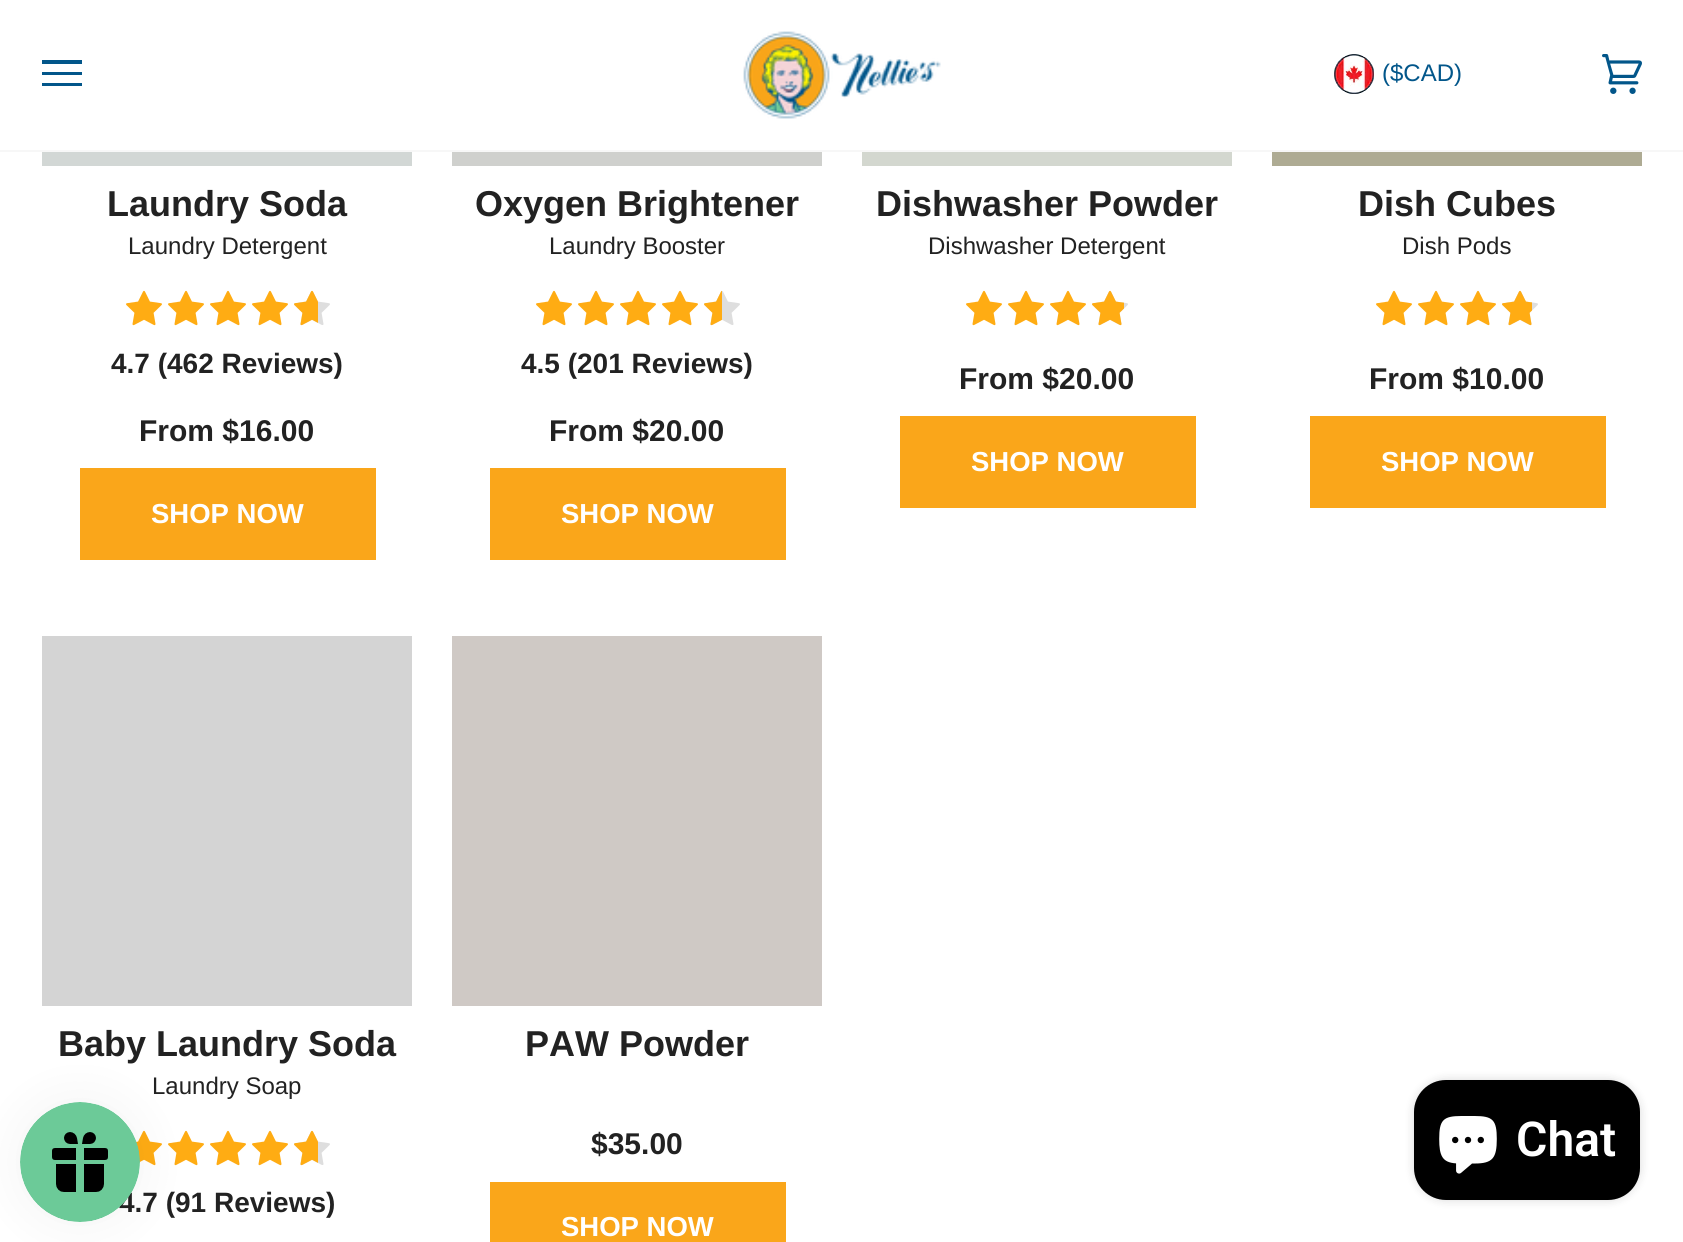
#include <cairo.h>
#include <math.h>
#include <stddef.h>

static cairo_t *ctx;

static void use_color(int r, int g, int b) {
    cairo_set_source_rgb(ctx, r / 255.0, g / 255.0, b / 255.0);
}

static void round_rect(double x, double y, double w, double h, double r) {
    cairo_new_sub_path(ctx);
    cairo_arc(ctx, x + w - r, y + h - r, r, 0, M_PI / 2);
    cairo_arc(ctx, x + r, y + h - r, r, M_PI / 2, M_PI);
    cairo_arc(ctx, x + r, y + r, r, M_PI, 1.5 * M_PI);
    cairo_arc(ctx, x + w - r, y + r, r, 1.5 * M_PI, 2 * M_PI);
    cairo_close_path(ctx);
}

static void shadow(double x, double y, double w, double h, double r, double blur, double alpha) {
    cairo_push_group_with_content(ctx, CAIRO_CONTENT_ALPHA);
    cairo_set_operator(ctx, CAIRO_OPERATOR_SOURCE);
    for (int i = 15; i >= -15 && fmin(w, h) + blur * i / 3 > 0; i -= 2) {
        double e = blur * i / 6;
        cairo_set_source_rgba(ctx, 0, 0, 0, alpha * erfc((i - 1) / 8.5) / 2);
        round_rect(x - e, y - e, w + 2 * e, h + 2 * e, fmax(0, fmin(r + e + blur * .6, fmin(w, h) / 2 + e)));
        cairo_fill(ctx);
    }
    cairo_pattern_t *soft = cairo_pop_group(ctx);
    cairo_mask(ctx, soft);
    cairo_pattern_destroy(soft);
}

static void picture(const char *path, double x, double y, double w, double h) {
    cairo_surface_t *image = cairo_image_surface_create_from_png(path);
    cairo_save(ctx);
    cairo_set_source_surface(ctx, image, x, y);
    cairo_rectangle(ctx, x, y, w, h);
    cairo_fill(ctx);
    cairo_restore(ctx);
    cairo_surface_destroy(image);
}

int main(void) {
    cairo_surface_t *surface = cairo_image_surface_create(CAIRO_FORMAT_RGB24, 1683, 1242);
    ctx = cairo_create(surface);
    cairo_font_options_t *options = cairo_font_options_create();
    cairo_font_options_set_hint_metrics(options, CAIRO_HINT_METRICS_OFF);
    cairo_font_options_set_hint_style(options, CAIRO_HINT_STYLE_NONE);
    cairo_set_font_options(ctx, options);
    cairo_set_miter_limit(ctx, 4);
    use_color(255, 255, 255);
    cairo_paint(ctx);
    use_color(247, 247, 247);
    cairo_rectangle(ctx, 0, 150, 1683, 2);
    cairo_fill(ctx);
    use_color(2, 86, 138);
    cairo_new_path(ctx);
    cairo_move_to(ctx, 42, 60);
    cairo_line_to(ctx, 82, 60);
    cairo_line_to(ctx, 82, 64);
    cairo_line_to(ctx, 42, 64);
    cairo_close_path(ctx);
    cairo_move_to(ctx, 42, 72);
    cairo_line_to(ctx, 82, 72);
    cairo_line_to(ctx, 82, 75);
    cairo_line_to(ctx, 42, 75);
    cairo_close_path(ctx);
    cairo_move_to(ctx, 42, 83);
    cairo_line_to(ctx, 82, 83);
    cairo_line_to(ctx, 82, 86);
    cairo_line_to(ctx, 42, 86);
    cairo_close_path(ctx);
    cairo_fill(ctx);
    picture("img1.png", 743, 31, 198, 88);
    picture("img2.png", 1334, 54, 40, 40);
    cairo_select_font_face(ctx, "Liberation Sans", CAIRO_FONT_SLANT_NORMAL, CAIRO_FONT_WEIGHT_NORMAL);
    cairo_set_font_size(ctx, 24);
    cairo_move_to(ctx, 1382, 81);
    cairo_show_text(ctx, "($CAD)");
    picture("img3.png", 1602, 54, 40, 40);
    use_color(210, 215, 213);
    cairo_rectangle(ctx, 42, 152, 370, 14);
    cairo_fill(ctx);
    cairo_select_font_face(ctx, "Liberation Sans", CAIRO_FONT_SLANT_NORMAL, CAIRO_FONT_WEIGHT_BOLD);
    cairo_set_font_size(ctx, 36);
    use_color(34, 34, 34);
    cairo_move_to(ctx, 107, 216);
    cairo_show_text(ctx, "Laundry Soda");
    cairo_select_font_face(ctx, "Liberation Sans", CAIRO_FONT_SLANT_NORMAL, CAIRO_FONT_WEIGHT_NORMAL);
    cairo_set_font_size(ctx, 24);
    cairo_move_to(ctx, 128, 254);
    cairo_show_text(ctx, "Laundry Detergent");
    picture("img4.png", 126, 290, 36, 36);
    picture("img4.png", 168, 290, 36, 36);
    picture("img4.png", 210, 290, 36, 36);
    picture("img4.png", 252, 290, 36, 36);
    picture("img6.png", 294, 291, 36, 34);
    picture("img5.png", 294, 290, 24, 36);
    cairo_select_font_face(ctx, "Liberation Sans", CAIRO_FONT_SLANT_NORMAL, CAIRO_FONT_WEIGHT_BOLD);
    cairo_set_font_size(ctx, 28);
    cairo_move_to(ctx, 111, 373);
    cairo_show_text(ctx, "4.7 (462 Reviews)");
    cairo_set_font_size(ctx, 30);
    cairo_move_to(ctx, 139, 441);
    cairo_show_text(ctx, "From $16.00");
    use_color(250, 166, 26);
    cairo_rectangle(ctx, 80, 468, 296, 92);
    cairo_fill(ctx);
    cairo_set_font_size(ctx, 27.5);
    use_color(255, 255, 255);
    cairo_move_to(ctx, 151, 523);
    cairo_show_text(ctx, "SHOP NOW");
    use_color(207, 208, 205);
    cairo_rectangle(ctx, 452, 152, 370, 14);
    cairo_fill(ctx);
    cairo_set_font_size(ctx, 36);
    use_color(34, 34, 34);
    cairo_move_to(ctx, 475, 216);
    cairo_show_text(ctx, "Oxygen Brightener");
    cairo_select_font_face(ctx, "Liberation Sans", CAIRO_FONT_SLANT_NORMAL, CAIRO_FONT_WEIGHT_NORMAL);
    cairo_set_font_size(ctx, 24);
    cairo_move_to(ctx, 549, 254);
    cairo_show_text(ctx, "Laundry Booster");
    picture("img4.png", 536, 290, 36, 36);
    picture("img4.png", 578, 290, 36, 36);
    picture("img4.png", 620, 290, 36, 36);
    picture("img4.png", 662, 290, 36, 36);
    picture("img6.png", 704, 291, 36, 34);
    picture("img7.png", 704, 290, 18, 36);
    cairo_select_font_face(ctx, "Liberation Sans", CAIRO_FONT_SLANT_NORMAL, CAIRO_FONT_WEIGHT_BOLD);
    cairo_set_font_size(ctx, 28);
    cairo_move_to(ctx, 521, 373);
    cairo_show_text(ctx, "4.5 (201 Reviews)");
    cairo_set_font_size(ctx, 30);
    cairo_move_to(ctx, 549, 441);
    cairo_show_text(ctx, "From $20.00");
    use_color(250, 166, 26);
    cairo_rectangle(ctx, 490, 468, 296, 92);
    cairo_fill(ctx);
    cairo_set_font_size(ctx, 27.5);
    use_color(255, 255, 255);
    cairo_move_to(ctx, 561, 523);
    cairo_show_text(ctx, "SHOP NOW");
    use_color(211, 215, 207);
    cairo_rectangle(ctx, 862, 152, 370, 14);
    cairo_fill(ctx);
    cairo_set_font_size(ctx, 36);
    use_color(34, 34, 34);
    cairo_move_to(ctx, 876, 216);
    cairo_show_text(ctx, "Dishwasher Powder");
    cairo_select_font_face(ctx, "Liberation Sans", CAIRO_FONT_SLANT_NORMAL, CAIRO_FONT_WEIGHT_NORMAL);
    cairo_set_font_size(ctx, 24);
    cairo_move_to(ctx, 928, 254);
    cairo_show_text(ctx, "Dishwasher Detergent");
    picture("img4.png", 966, 290, 36, 36);
    picture("img4.png", 1008, 290, 36, 36);
    picture("img4.png", 1050, 290, 36, 36);
    picture("img6.png", 1092, 291, 36, 34);
    picture("img8.png", 1092, 290, 32, 36);
    cairo_select_font_face(ctx, "Liberation Sans", CAIRO_FONT_SLANT_NORMAL, CAIRO_FONT_WEIGHT_BOLD);
    cairo_set_font_size(ctx, 30);
    cairo_move_to(ctx, 959, 389);
    cairo_show_text(ctx, "From $20.00");
    use_color(250, 166, 26);
    cairo_rectangle(ctx, 900, 416, 296, 92);
    cairo_fill(ctx);
    cairo_set_font_size(ctx, 27.5);
    use_color(255, 255, 255);
    cairo_move_to(ctx, 971, 471);
    cairo_show_text(ctx, "SHOP NOW");
    use_color(174, 171, 147);
    cairo_rectangle(ctx, 1272, 152, 370, 14);
    cairo_fill(ctx);
    cairo_set_font_size(ctx, 36);
    use_color(34, 34, 34);
    cairo_move_to(ctx, 1358, 216);
    cairo_show_text(ctx, "Dish Cubes");
    cairo_select_font_face(ctx, "Liberation Sans", CAIRO_FONT_SLANT_NORMAL, CAIRO_FONT_WEIGHT_NORMAL);
    cairo_set_font_size(ctx, 24);
    cairo_move_to(ctx, 1402, 254);
    cairo_show_text(ctx, "Dish Pods");
    picture("img4.png", 1376, 290, 36, 36);
    picture("img4.png", 1418, 290, 36, 36);
    picture("img4.png", 1460, 290, 36, 36);
    picture("img6.png", 1502, 291, 36, 34);
    picture("img9.png", 1502, 290, 30, 36);
    cairo_select_font_face(ctx, "Liberation Sans", CAIRO_FONT_SLANT_NORMAL, CAIRO_FONT_WEIGHT_BOLD);
    cairo_set_font_size(ctx, 30);
    cairo_move_to(ctx, 1369, 389);
    cairo_show_text(ctx, "From $10.00");
    use_color(250, 166, 26);
    cairo_rectangle(ctx, 1310, 416, 296, 92);
    cairo_fill(ctx);
    cairo_set_font_size(ctx, 27.5);
    use_color(255, 255, 255);
    cairo_move_to(ctx, 1381, 471);
    cairo_show_text(ctx, "SHOP NOW");
    use_color(212, 212, 212);
    cairo_rectangle(ctx, 42, 636, 370, 370);
    cairo_fill(ctx);
    cairo_set_font_size(ctx, 36);
    use_color(34, 34, 34);
    cairo_move_to(ctx, 58, 1056);
    cairo_show_text(ctx, "Baby Laundry Soda");
    cairo_select_font_face(ctx, "Liberation Sans", CAIRO_FONT_SLANT_NORMAL, CAIRO_FONT_WEIGHT_NORMAL);
    cairo_set_font_size(ctx, 24);
    cairo_move_to(ctx, 152, 1094);
    cairo_show_text(ctx, "Laundry Soap");
    picture("img10.png", 136, 1130, 26, 36);
    picture("img4.png", 168, 1130, 36, 36);
    picture("img4.png", 210, 1130, 36, 36);
    picture("img4.png", 252, 1130, 36, 36);
    picture("img6.png", 294, 1131, 36, 34);
    picture("img5.png", 294, 1130, 24, 36);
    cairo_select_font_face(ctx, "Liberation Sans", CAIRO_FONT_SLANT_NORMAL, CAIRO_FONT_WEIGHT_BOLD);
    cairo_set_font_size(ctx, 28);
    cairo_move_to(ctx, 119, 1212);
    cairo_show_text(ctx, "4.7 (91 Reviews)");
    use_color(207, 201, 197);
    cairo_rectangle(ctx, 452, 636, 370, 370);
    cairo_fill(ctx);
    cairo_set_font_size(ctx, 36);
    use_color(34, 34, 34);
    cairo_move_to(ctx, 525, 1056);
    cairo_show_text(ctx, "PAW Powder");
    cairo_set_font_size(ctx, 30);
    cairo_move_to(ctx, 591, 1154);
    cairo_show_text(ctx, "$35.00");
    use_color(250, 166, 26);
    cairo_rectangle(ctx, 490, 1182, 296, 60);
    cairo_fill(ctx);
    cairo_set_font_size(ctx, 27.5);
    use_color(255, 255, 255);
    cairo_move_to(ctx, 561, 1236);
    cairo_show_text(ctx, "SHOP NOW");
    use_color(0, 0, 0);
    shadow(20, 1102, 120, 120, 60, 25, 0.05);
    picture("img11.png", 20, 1102, 120, 120);
    shadow(1414, 1080, 226, 120, 32, 5, 0.15);
    use_color(0, 0, 0);
    round_rect(1414, 1080, 226, 120, 32);
    cairo_fill(ctx);
    picture("img12.png", 1439, 1116, 58, 58);
    cairo_select_font_face(ctx, "Roboto SemiBold", CAIRO_FONT_SLANT_NORMAL, CAIRO_FONT_WEIGHT_NORMAL);
    cairo_set_font_size(ctx, 48);
    use_color(255, 255, 255);
    cairo_move_to(ctx, 1516, 1156);
    cairo_show_text(ctx, "Chat");
    cairo_surface_write_to_png(surface, "result.png");
    cairo_font_options_destroy(options);
    cairo_destroy(ctx);
    cairo_surface_destroy(surface);
    return 0;
}
